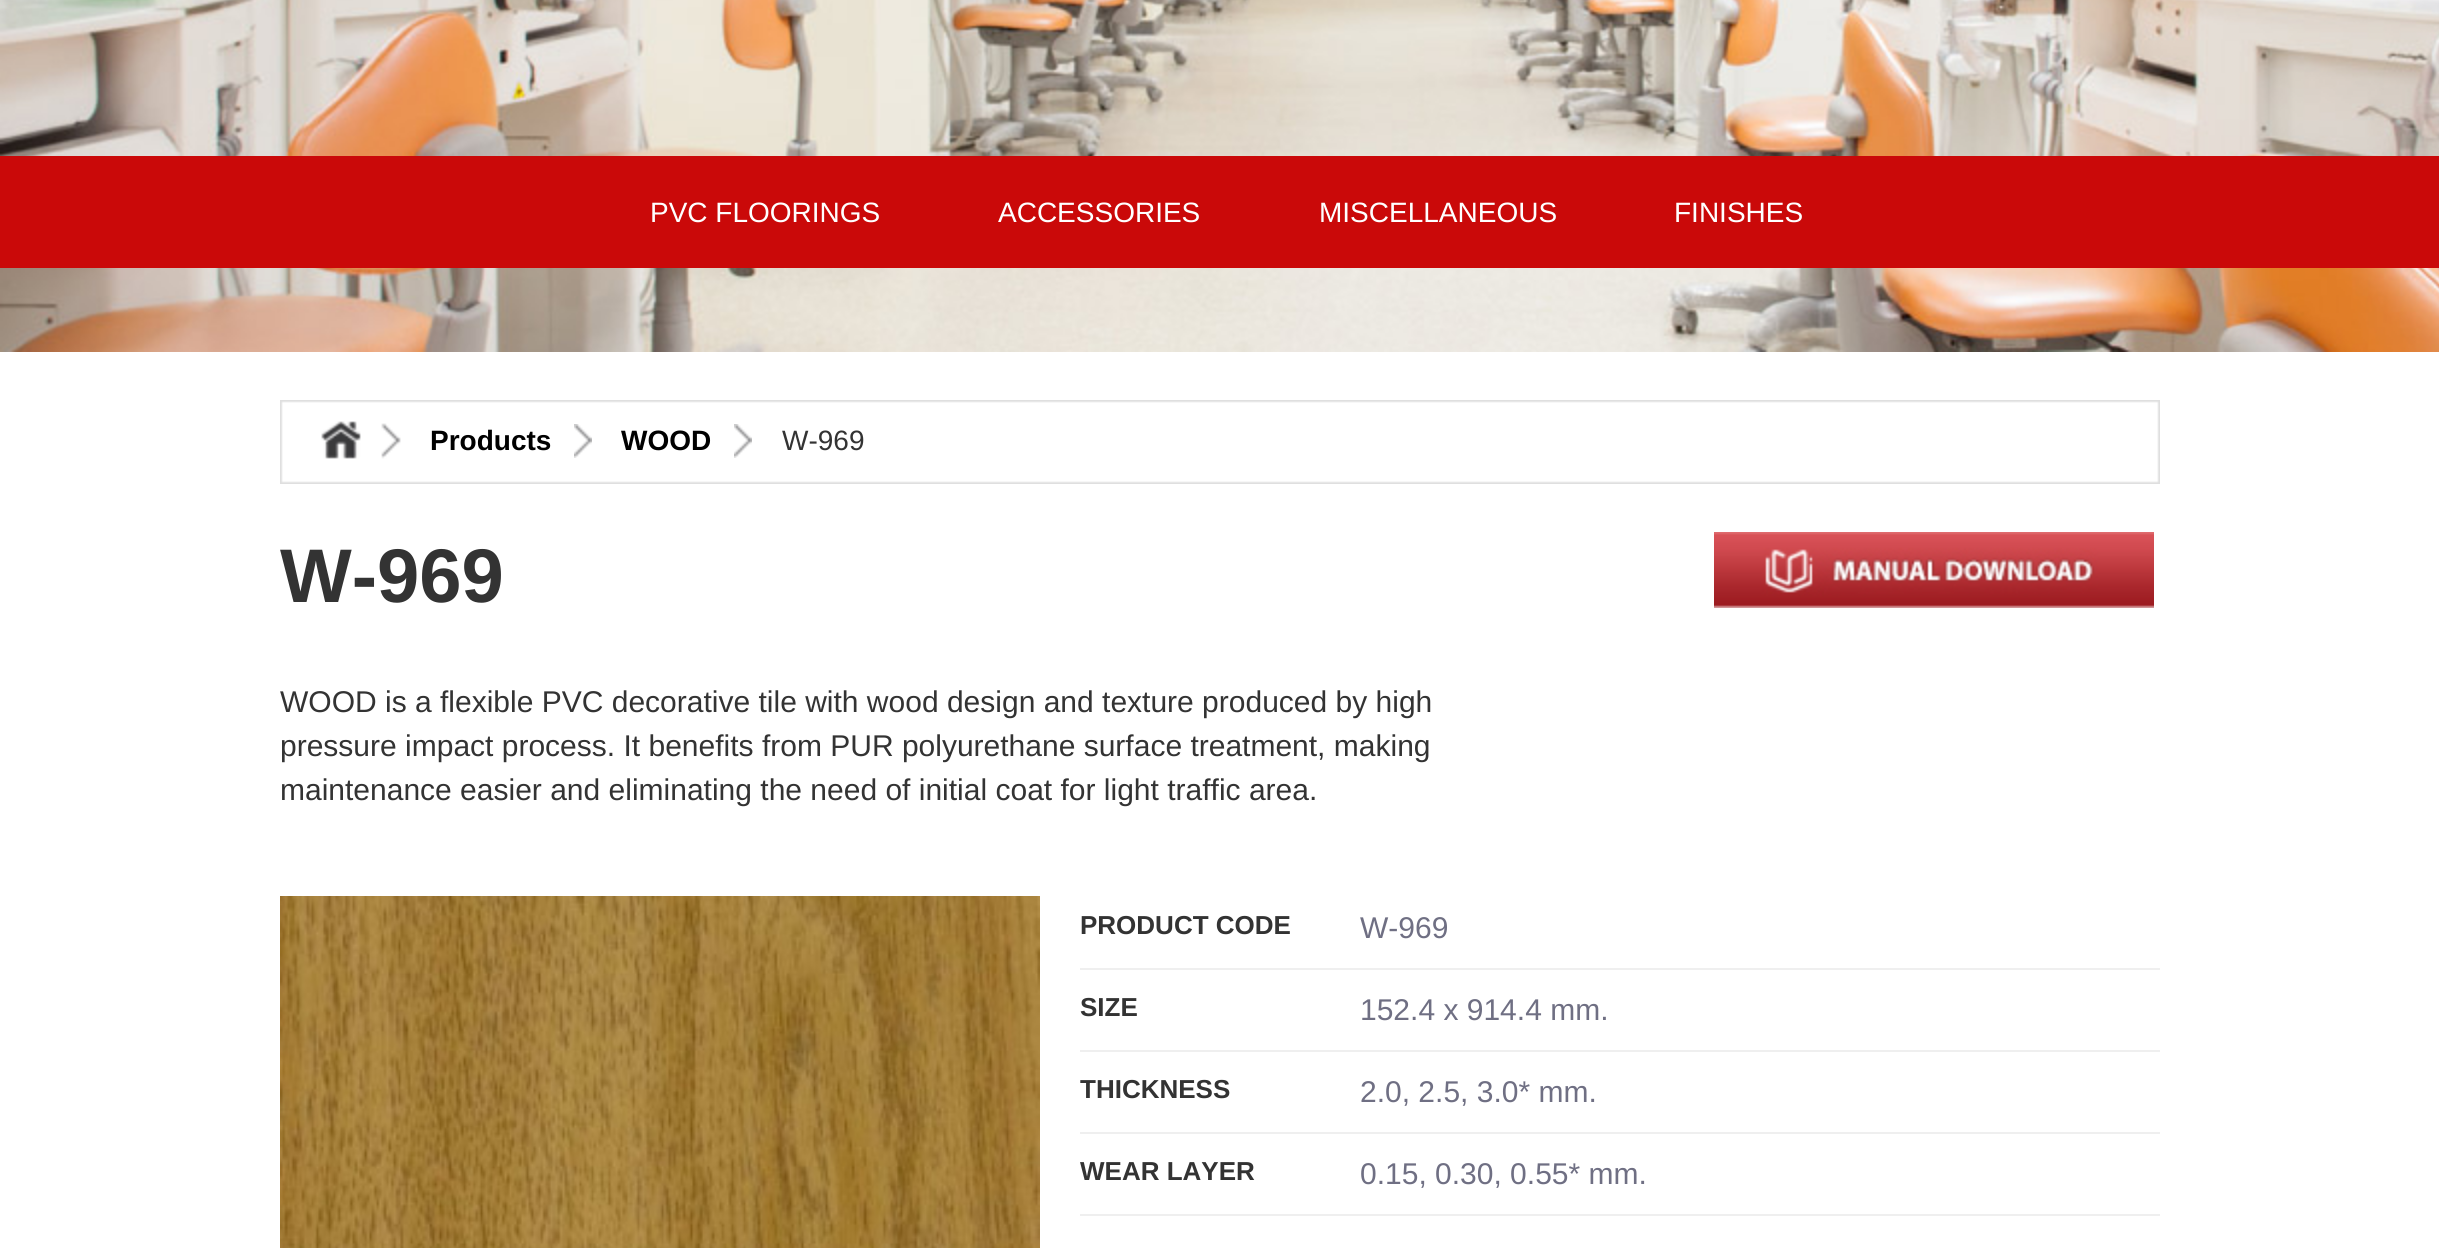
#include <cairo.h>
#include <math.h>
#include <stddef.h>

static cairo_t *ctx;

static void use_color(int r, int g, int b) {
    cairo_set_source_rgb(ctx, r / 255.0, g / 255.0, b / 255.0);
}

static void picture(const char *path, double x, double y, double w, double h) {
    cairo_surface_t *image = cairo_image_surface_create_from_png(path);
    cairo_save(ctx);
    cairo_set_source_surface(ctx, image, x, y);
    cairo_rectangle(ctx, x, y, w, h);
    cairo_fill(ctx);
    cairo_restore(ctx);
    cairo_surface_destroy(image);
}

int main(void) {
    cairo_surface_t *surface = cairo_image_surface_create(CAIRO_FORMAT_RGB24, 2439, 1248);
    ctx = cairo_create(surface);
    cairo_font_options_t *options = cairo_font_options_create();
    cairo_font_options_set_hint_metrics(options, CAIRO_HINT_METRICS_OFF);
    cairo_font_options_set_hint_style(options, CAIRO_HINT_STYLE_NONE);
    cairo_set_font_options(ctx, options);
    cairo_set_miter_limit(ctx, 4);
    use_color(255, 255, 255);
    cairo_paint(ctx);
    picture("img1.png", 0, 0, 2439, 352);
    use_color(202, 9, 9);
    cairo_rectangle(ctx, 0, 156, 2439, 112);
    cairo_fill(ctx);
    cairo_select_font_face(ctx, "Liberation Sans", CAIRO_FONT_SLANT_NORMAL, CAIRO_FONT_WEIGHT_NORMAL);
    cairo_set_font_size(ctx, 28);
    use_color(255, 255, 255);
    cairo_move_to(ctx, 650, 222);
    cairo_show_text(ctx, "PVC FLOORINGS");
    cairo_move_to(ctx, 998, 222);
    cairo_show_text(ctx, "ACCESSORIES");
    cairo_move_to(ctx, 1319, 222);
    cairo_show_text(ctx, "MISCELLANEOUS");
    cairo_move_to(ctx, 1674, 222);
    cairo_show_text(ctx, "FINISHES");
    picture("img2.png", 280, 400, 1880, 84);
    picture("img3.png", 574, 424, 18, 34);
    cairo_select_font_face(ctx, "Liberation Sans", CAIRO_FONT_SLANT_NORMAL, CAIRO_FONT_WEIGHT_BOLD);
    use_color(0, 0, 0);
    cairo_move_to(ctx, 430, 450);
    cairo_show_text(ctx, "Products");
    picture("img3.png", 734, 424, 18, 34);
    cairo_move_to(ctx, 621, 450);
    cairo_show_text(ctx, "WOOD");
    cairo_select_font_face(ctx, "Liberation Sans", CAIRO_FONT_SLANT_NORMAL, CAIRO_FONT_WEIGHT_NORMAL);
    use_color(51, 51, 51);
    cairo_move_to(ctx, 782, 450);
    cairo_show_text(ctx, "W-969");
    cairo_select_font_face(ctx, "Liberation Sans", CAIRO_FONT_SLANT_NORMAL, CAIRO_FONT_WEIGHT_BOLD);
    cairo_set_font_size(ctx, 76);
    cairo_move_to(ctx, 280, 602);
    cairo_show_text(ctx, "W-969");
    cairo_select_font_face(ctx, "Liberation Sans", CAIRO_FONT_SLANT_NORMAL, CAIRO_FONT_WEIGHT_NORMAL);
    cairo_set_font_size(ctx, 30);
    cairo_move_to(ctx, 280, 712);
    cairo_show_text(ctx, "WOOD is a flexible PVC decorative tile with wood design and texture produced by high");
    cairo_move_to(ctx, 280, 756);
    cairo_show_text(ctx, "pressure impact process. It benefits from PUR polyurethane surface treatment, making");
    cairo_move_to(ctx, 280, 800);
    cairo_show_text(ctx, "maintenance easier and eliminating the need of initial coat for light traffic area.");
    picture("img4.png", 1714, 532, 440, 76);
    picture("img5.png", 280, 896, 760, 352);
    cairo_select_font_face(ctx, "Liberation Sans", CAIRO_FONT_SLANT_NORMAL, CAIRO_FONT_WEIGHT_BOLD);
    cairo_set_font_size(ctx, 26);
    cairo_move_to(ctx, 1080, 934);
    cairo_show_text(ctx, "PRODUCT CODE");
    cairo_select_font_face(ctx, "Liberation Sans", CAIRO_FONT_SLANT_NORMAL, CAIRO_FONT_WEIGHT_NORMAL);
    cairo_set_font_size(ctx, 30);
    use_color(111, 111, 131);
    cairo_move_to(ctx, 1360, 938);
    cairo_show_text(ctx, "W-969");
    use_color(239, 239, 239);
    cairo_rectangle(ctx, 1080, 968, 1080, 2);
    cairo_fill(ctx);
    cairo_select_font_face(ctx, "Liberation Sans", CAIRO_FONT_SLANT_NORMAL, CAIRO_FONT_WEIGHT_BOLD);
    cairo_set_font_size(ctx, 26);
    use_color(51, 51, 51);
    cairo_move_to(ctx, 1080, 1016);
    cairo_show_text(ctx, "SIZE");
    cairo_select_font_face(ctx, "Liberation Sans", CAIRO_FONT_SLANT_NORMAL, CAIRO_FONT_WEIGHT_NORMAL);
    cairo_set_font_size(ctx, 30);
    use_color(111, 111, 131);
    cairo_move_to(ctx, 1360, 1020);
    cairo_show_text(ctx, "152.4 x 914.4 mm.");
    use_color(239, 239, 239);
    cairo_rectangle(ctx, 1080, 1050, 1080, 2);
    cairo_fill(ctx);
    cairo_select_font_face(ctx, "Liberation Sans", CAIRO_FONT_SLANT_NORMAL, CAIRO_FONT_WEIGHT_BOLD);
    cairo_set_font_size(ctx, 26);
    use_color(51, 51, 51);
    cairo_move_to(ctx, 1080, 1098);
    cairo_show_text(ctx, "THICKNESS");
    cairo_select_font_face(ctx, "Liberation Sans", CAIRO_FONT_SLANT_NORMAL, CAIRO_FONT_WEIGHT_NORMAL);
    cairo_set_font_size(ctx, 30);
    use_color(111, 111, 131);
    cairo_move_to(ctx, 1360, 1102);
    cairo_show_text(ctx, "2.0, 2.5, 3.0* mm.");
    use_color(239, 239, 239);
    cairo_rectangle(ctx, 1080, 1132, 1080, 2);
    cairo_fill(ctx);
    cairo_select_font_face(ctx, "Liberation Sans", CAIRO_FONT_SLANT_NORMAL, CAIRO_FONT_WEIGHT_BOLD);
    cairo_set_font_size(ctx, 26);
    use_color(51, 51, 51);
    cairo_move_to(ctx, 1080, 1180);
    cairo_show_text(ctx, "WEAR LAYER");
    cairo_select_font_face(ctx, "Liberation Sans", CAIRO_FONT_SLANT_NORMAL, CAIRO_FONT_WEIGHT_NORMAL);
    cairo_set_font_size(ctx, 30);
    use_color(111, 111, 131);
    cairo_move_to(ctx, 1360, 1184);
    cairo_show_text(ctx, "0.15, 0.30, 0.55* mm.");
    use_color(239, 239, 239);
    cairo_rectangle(ctx, 1080, 1214, 1080, 2);
    cairo_fill(ctx);
    cairo_surface_write_to_png(surface, "result.png");
    cairo_font_options_destroy(options);
    cairo_destroy(ctx);
    cairo_surface_destroy(surface);
    return 0;
}
